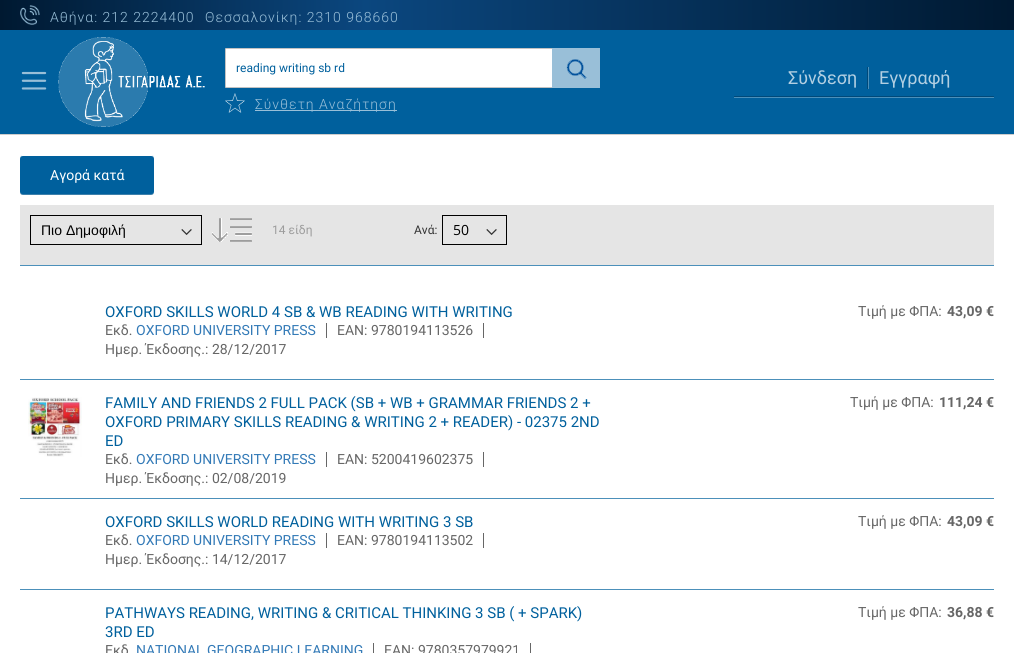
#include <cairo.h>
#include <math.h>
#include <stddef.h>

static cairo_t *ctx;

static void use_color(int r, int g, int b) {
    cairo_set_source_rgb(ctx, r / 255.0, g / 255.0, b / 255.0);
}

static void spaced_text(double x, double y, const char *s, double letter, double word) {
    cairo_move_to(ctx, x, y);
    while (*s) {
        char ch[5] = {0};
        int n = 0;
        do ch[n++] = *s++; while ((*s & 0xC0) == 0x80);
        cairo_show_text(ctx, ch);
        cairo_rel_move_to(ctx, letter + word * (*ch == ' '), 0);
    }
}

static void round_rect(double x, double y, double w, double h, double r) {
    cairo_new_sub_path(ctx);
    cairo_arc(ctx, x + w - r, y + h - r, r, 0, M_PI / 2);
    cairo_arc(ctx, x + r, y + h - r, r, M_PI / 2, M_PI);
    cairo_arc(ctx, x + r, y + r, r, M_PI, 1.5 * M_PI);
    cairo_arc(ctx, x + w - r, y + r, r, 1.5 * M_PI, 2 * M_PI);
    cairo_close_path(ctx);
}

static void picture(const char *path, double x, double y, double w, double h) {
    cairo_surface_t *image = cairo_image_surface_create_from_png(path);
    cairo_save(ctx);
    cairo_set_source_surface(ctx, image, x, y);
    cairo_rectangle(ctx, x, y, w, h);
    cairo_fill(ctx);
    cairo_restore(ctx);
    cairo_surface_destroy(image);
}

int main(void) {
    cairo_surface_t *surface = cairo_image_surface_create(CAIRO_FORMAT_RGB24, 1014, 653);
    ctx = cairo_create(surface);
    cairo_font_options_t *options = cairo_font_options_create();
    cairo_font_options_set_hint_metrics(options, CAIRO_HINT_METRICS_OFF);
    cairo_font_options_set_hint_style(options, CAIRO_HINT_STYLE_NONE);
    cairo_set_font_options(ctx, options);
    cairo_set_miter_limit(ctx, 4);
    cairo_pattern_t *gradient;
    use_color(255, 255, 255);
    cairo_paint(ctx);
    use_color(0, 96, 157);
    cairo_rectangle(ctx, 0, 30, 1014, 104);
    cairo_fill(ctx);
    use_color(204, 204, 204);
    cairo_rectangle(ctx, 0, 134, 1014, 1);
    cairo_fill(ctx);
    gradient = cairo_pattern_create_linear(0, 15, 1014, 15);
    cairo_pattern_add_color_stop_rgba(gradient, 0, 0, 0.098, 0.192, 1);
    cairo_pattern_add_color_stop_rgba(gradient, 0.36, 0.043, 0.278, 0.498, 1);
    cairo_pattern_add_color_stop_rgba(gradient, 1, 0, 0.098, 0.192, 1);
    cairo_set_source(ctx, gradient);
    cairo_pattern_destroy(gradient);
    cairo_rectangle(ctx, 0, 0, 1014, 30);
    cairo_fill(ctx);
    picture("img1.png", 20, 5, 20, 20);
    cairo_select_font_face(ctx, "Roboto Light", CAIRO_FONT_SLANT_NORMAL, CAIRO_FONT_WEIGHT_NORMAL);
    cairo_set_font_size(ctx, 14);
    use_color(153, 191, 216);
    spaced_text(50, 22, "Αθήνα: 212 2224400", 1, 0);
    spaced_text(205, 22, "Θεσσαλονίκη: 2310 968660", 1, 0);
    picture("img2.png", 21, 71, 26, 19);
    picture("img3.png", 58, 37, 147, 90);
    use_color(255, 255, 255);
    round_rect(225.5, 48.5, 374, 39, 0.5);
    cairo_fill_preserve(ctx);
    use_color(194, 194, 194);
    cairo_set_line_width(ctx, 1);
    cairo_stroke(ctx);
    cairo_select_font_face(ctx, "Roboto", CAIRO_FONT_SLANT_NORMAL, CAIRO_FONT_WEIGHT_NORMAL);
    cairo_set_font_size(ctx, 12);
    use_color(0, 96, 157);
    cairo_move_to(ctx, 236, 72);
    cairo_show_text(ctx, "reading writing sb rd");
    use_color(153, 191, 216);
    cairo_rectangle(ctx, 552, 48, 48, 40);
    cairo_fill(ctx);
    picture("img4.png", 566, 59, 21, 20);
    picture("img5.png", 225, 93, 20, 20);
    cairo_rectangle(ctx, 255, 110, 142, 1);
    cairo_fill(ctx);
    cairo_select_font_face(ctx, "Roboto Light", CAIRO_FONT_SLANT_NORMAL, CAIRO_FONT_WEIGHT_NORMAL);
    cairo_set_font_size(ctx, 14);
    spaced_text(255, 109, "Σύνθετη Αναζήτηση", 1, 0);
    use_color(76, 144, 186);
    cairo_rectangle(ctx, 734, 97, 260, 1);
    cairo_fill(ctx);
    cairo_rectangle(ctx, 868, 67, 1, 22);
    cairo_fill(ctx);
    cairo_select_font_face(ctx, "Roboto", CAIRO_FONT_SLANT_NORMAL, CAIRO_FONT_WEIGHT_NORMAL);
    cairo_set_font_size(ctx, 18);
    use_color(178, 207, 226);
    cairo_move_to(ctx, 788, 84);
    cairo_show_text(ctx, "Σύνδεση");
    use_color(0, 73, 121);
    cairo_rectangle(ctx, 867, 67, 1, 22);
    cairo_fill(ctx);
    use_color(178, 207, 226);
    cairo_move_to(ctx, 879, 84);
    cairo_show_text(ctx, "Εγγραφή");
    use_color(0, 73, 121);
    cairo_rectangle(ctx, 734, 96, 260, 1);
    cairo_fill(ctx);
    use_color(0, 96, 157);
    round_rect(20, 155, 134, 40, 3);
    cairo_fill(ctx);
    cairo_set_source_rgba(ctx, 0.8, 0.8, 0.8, 0.3);
    cairo_new_path(ctx);
    cairo_move_to(ctx, 20, 191);
    cairo_curve_to(ctx, 20, 193, 20, 195, 22, 195);
    cairo_line_to(ctx, 152, 195);
    cairo_curve_to(ctx, 154, 195, 154, 193, 154, 191);
    cairo_curve_to(ctx, 154, 193, 153, 194, 151, 194);
    cairo_line_to(ctx, 23, 194);
    cairo_curve_to(ctx, 21, 194, 20, 193, 20, 191);
    cairo_close_path(ctx);
    cairo_fill(ctx);
    use_color(255, 255, 255);
    cairo_new_path(ctx);
    cairo_move_to(ctx, 23, 156);
    cairo_line_to(ctx, 151, 156);
    cairo_curve_to(ctx, 153, 156, 154, 157, 154, 159);
    cairo_curve_to(ctx, 154, 157, 154, 155, 152, 155);
    cairo_line_to(ctx, 22, 155);
    cairo_curve_to(ctx, 20, 155, 20, 157, 20, 159);
    cairo_curve_to(ctx, 20, 157, 21, 156, 23, 156);
    cairo_close_path(ctx);
    cairo_fill(ctx);
    cairo_set_font_size(ctx, 14);
    cairo_move_to(ctx, 50, 180);
    cairo_show_text(ctx, "Αγορά κατά");
    use_color(229, 229, 229);
    cairo_rectangle(ctx, 20, 205, 974, 60);
    cairo_fill(ctx);
    use_color(76, 144, 186);
    cairo_rectangle(ctx, 20, 265, 974, 1);
    cairo_fill(ctx);
    picture("img6.png", 181, 229, 11, 6);
    cairo_rectangle(ctx, 30.5, 215.5, 171, 29);
    use_color(0, 0, 0);
    cairo_stroke(ctx);
    cairo_select_font_face(ctx, "Liberation Sans", CAIRO_FONT_SLANT_NORMAL, CAIRO_FONT_WEIGHT_NORMAL);
    cairo_move_to(ctx, 41, 235);
    cairo_show_text(ctx, "Πιο Δημοφιλή");
    picture("img7.png", 212, 218, 40, 24);
    cairo_select_font_face(ctx, "Roboto", CAIRO_FONT_SLANT_NORMAL, CAIRO_FONT_WEIGHT_NORMAL);
    cairo_set_font_size(ctx, 12);
    use_color(156, 156, 156);
    cairo_move_to(ctx, 272, 234);
    cairo_show_text(ctx, "14 είδη");
    use_color(51, 51, 51);
    cairo_move_to(ctx, 414, 234);
    cairo_show_text(ctx, "Ανά:");
    picture("img6.png", 486, 229, 11, 6);
    cairo_rectangle(ctx, 442.5, 215.5, 64, 29);
    use_color(0, 0, 0);
    cairo_stroke(ctx);
    cairo_select_font_face(ctx, "Open Sans", CAIRO_FONT_SLANT_NORMAL, CAIRO_FONT_WEIGHT_NORMAL);
    cairo_set_font_size(ctx, 14);
    cairo_move_to(ctx, 453, 235);
    cairo_show_text(ctx, "50");
    use_color(76, 144, 186);
    cairo_rectangle(ctx, 20, 379, 974, 1);
    cairo_fill(ctx);
    cairo_select_font_face(ctx, "Roboto", CAIRO_FONT_SLANT_NORMAL, CAIRO_FONT_WEIGHT_NORMAL);
    cairo_set_font_size(ctx, 15);
    use_color(0, 96, 157);
    cairo_move_to(ctx, 105, 317);
    cairo_show_text(ctx, "OXFORD SKILLS WORLD 4 SB & WB READING WITH WRITING");
    use_color(102, 102, 102);
    cairo_rectangle(ctx, 326, 323, 1, 15);
    cairo_fill(ctx);
    cairo_set_font_size(ctx, 14);
    cairo_move_to(ctx, 105, 335);
    cairo_show_text(ctx, "Εκδ.");
    use_color(51, 122, 183);
    cairo_move_to(ctx, 136, 335);
    cairo_show_text(ctx, "OXFORD UNIVERSITY PRESS");
    use_color(102, 102, 102);
    cairo_rectangle(ctx, 483, 323, 1, 15);
    cairo_fill(ctx);
    cairo_move_to(ctx, 337, 335);
    cairo_show_text(ctx, "EAN: 9780194113526");
    cairo_move_to(ctx, 105, 354);
    cairo_show_text(ctx, "Ημερ. Έκδoσης.: 28/12/2017");
    cairo_move_to(ctx, 858, 316);
    cairo_show_text(ctx, "Τιμή με ΦΠΑ:");
    cairo_select_font_face(ctx, "Roboto", CAIRO_FONT_SLANT_NORMAL, CAIRO_FONT_WEIGHT_BOLD);
    cairo_move_to(ctx, 947, 316);
    cairo_show_text(ctx, "43,09 €");
    use_color(76, 144, 186);
    cairo_rectangle(ctx, 20, 498, 974, 1);
    cairo_fill(ctx);
    picture("img8.png", 28, 397, 54, 60);
    cairo_select_font_face(ctx, "Roboto", CAIRO_FONT_SLANT_NORMAL, CAIRO_FONT_WEIGHT_NORMAL);
    cairo_set_font_size(ctx, 15);
    use_color(0, 96, 157);
    cairo_move_to(ctx, 105, 408);
    cairo_show_text(ctx, "FAMILY AND FRIENDS 2 FULL PACK (SB + WB + GRAMMAR FRIENDS 2 +");
    cairo_move_to(ctx, 105, 427);
    cairo_show_text(ctx, "OXFORD PRIMARY SKILLS READING & WRITING 2 + READER) - 02375 2ND");
    cairo_move_to(ctx, 105, 446);
    cairo_show_text(ctx, "ED");
    use_color(102, 102, 102);
    cairo_rectangle(ctx, 326, 452, 1, 15);
    cairo_fill(ctx);
    cairo_set_font_size(ctx, 14);
    cairo_move_to(ctx, 105, 464);
    cairo_show_text(ctx, "Εκδ.");
    use_color(51, 122, 183);
    cairo_move_to(ctx, 136, 464);
    cairo_show_text(ctx, "OXFORD UNIVERSITY PRESS");
    use_color(102, 102, 102);
    cairo_rectangle(ctx, 483, 452, 1, 15);
    cairo_fill(ctx);
    cairo_move_to(ctx, 337, 464);
    cairo_show_text(ctx, "EAN: 5200419602375");
    cairo_move_to(ctx, 105, 483);
    cairo_show_text(ctx, "Ημερ. Έκδoσης.: 02/08/2019");
    cairo_move_to(ctx, 850, 407);
    cairo_show_text(ctx, "Τιμή με ΦΠΑ:");
    cairo_select_font_face(ctx, "Roboto", CAIRO_FONT_SLANT_NORMAL, CAIRO_FONT_WEIGHT_BOLD);
    cairo_move_to(ctx, 939, 407);
    cairo_show_text(ctx, "111,24 €");
    use_color(76, 144, 186);
    cairo_rectangle(ctx, 20, 589, 974, 1);
    cairo_fill(ctx);
    cairo_select_font_face(ctx, "Roboto", CAIRO_FONT_SLANT_NORMAL, CAIRO_FONT_WEIGHT_NORMAL);
    cairo_set_font_size(ctx, 15);
    use_color(0, 96, 157);
    cairo_move_to(ctx, 105, 527);
    cairo_show_text(ctx, "OXFORD SKILLS WORLD READING WITH WRITING 3 SB");
    use_color(102, 102, 102);
    cairo_rectangle(ctx, 326, 533, 1, 15);
    cairo_fill(ctx);
    cairo_set_font_size(ctx, 14);
    cairo_move_to(ctx, 105, 545);
    cairo_show_text(ctx, "Εκδ.");
    use_color(51, 122, 183);
    cairo_move_to(ctx, 136, 545);
    cairo_show_text(ctx, "OXFORD UNIVERSITY PRESS");
    use_color(102, 102, 102);
    cairo_rectangle(ctx, 483, 533, 1, 15);
    cairo_fill(ctx);
    cairo_move_to(ctx, 337, 545);
    cairo_show_text(ctx, "EAN: 9780194113502");
    cairo_move_to(ctx, 105, 564);
    cairo_show_text(ctx, "Ημερ. Έκδoσης.: 14/12/2017");
    cairo_move_to(ctx, 858, 526);
    cairo_show_text(ctx, "Τιμή με ΦΠΑ:");
    cairo_select_font_face(ctx, "Roboto", CAIRO_FONT_SLANT_NORMAL, CAIRO_FONT_WEIGHT_BOLD);
    cairo_move_to(ctx, 947, 526);
    cairo_show_text(ctx, "43,09 €");
    cairo_select_font_face(ctx, "Roboto", CAIRO_FONT_SLANT_NORMAL, CAIRO_FONT_WEIGHT_NORMAL);
    cairo_set_font_size(ctx, 15);
    use_color(0, 96, 157);
    cairo_move_to(ctx, 105, 618);
    cairo_show_text(ctx, "PATHWAYS READING, WRITING & CRITICAL THINKING 3 SB ( + SPARK)");
    cairo_move_to(ctx, 105, 637);
    cairo_show_text(ctx, "3RD ED");
    use_color(102, 102, 102);
    cairo_rectangle(ctx, 373, 643, 1, 10);
    cairo_fill(ctx);
    cairo_set_font_size(ctx, 14);
    cairo_move_to(ctx, 105, 655);
    cairo_show_text(ctx, "Εκδ");
    use_color(51, 122, 183);
    cairo_move_to(ctx, 136, 655);
    cairo_show_text(ctx, "NATIONAL GEOGRAPHIC LEARNING");
    use_color(102, 102, 102);
    cairo_rectangle(ctx, 530, 643, 1, 10);
    cairo_fill(ctx);
    cairo_move_to(ctx, 384, 655);
    cairo_show_text(ctx, "EAN: 9780357979921");
    cairo_move_to(ctx, 858, 617);
    cairo_show_text(ctx, "Τιμή με ΦΠΑ:");
    cairo_select_font_face(ctx, "Roboto", CAIRO_FONT_SLANT_NORMAL, CAIRO_FONT_WEIGHT_BOLD);
    cairo_move_to(ctx, 947, 617);
    cairo_show_text(ctx, "36,88 €");
    cairo_surface_write_to_png(surface, "result.png");
    cairo_font_options_destroy(options);
    cairo_destroy(ctx);
    cairo_surface_destroy(surface);
    return 0;
}
